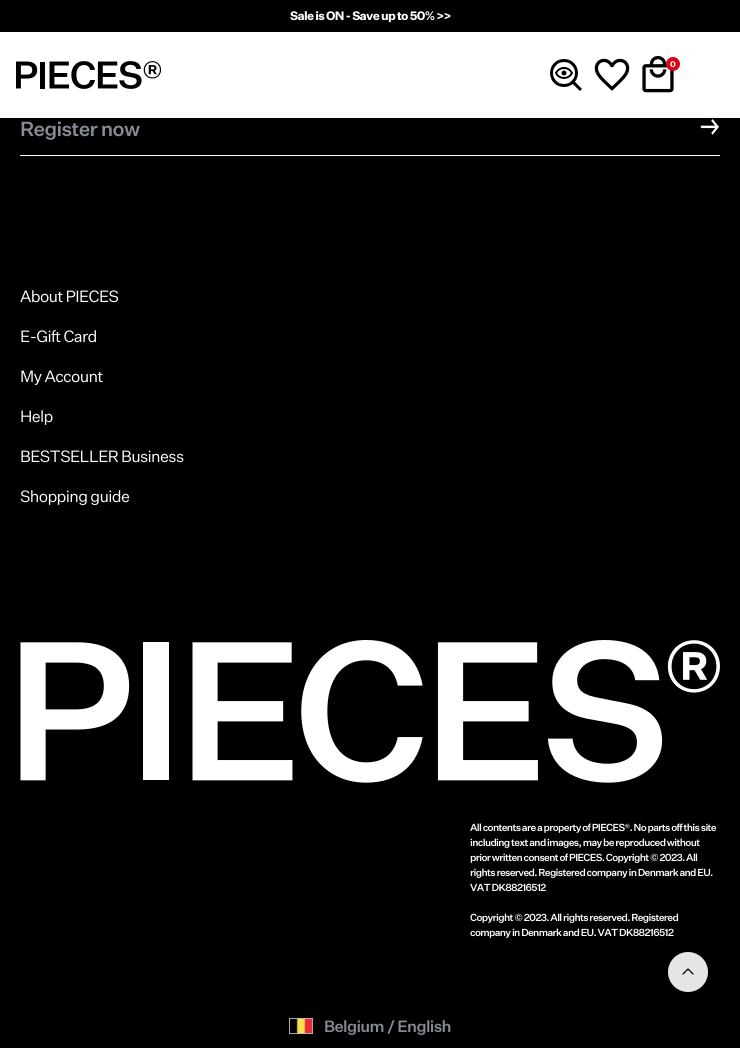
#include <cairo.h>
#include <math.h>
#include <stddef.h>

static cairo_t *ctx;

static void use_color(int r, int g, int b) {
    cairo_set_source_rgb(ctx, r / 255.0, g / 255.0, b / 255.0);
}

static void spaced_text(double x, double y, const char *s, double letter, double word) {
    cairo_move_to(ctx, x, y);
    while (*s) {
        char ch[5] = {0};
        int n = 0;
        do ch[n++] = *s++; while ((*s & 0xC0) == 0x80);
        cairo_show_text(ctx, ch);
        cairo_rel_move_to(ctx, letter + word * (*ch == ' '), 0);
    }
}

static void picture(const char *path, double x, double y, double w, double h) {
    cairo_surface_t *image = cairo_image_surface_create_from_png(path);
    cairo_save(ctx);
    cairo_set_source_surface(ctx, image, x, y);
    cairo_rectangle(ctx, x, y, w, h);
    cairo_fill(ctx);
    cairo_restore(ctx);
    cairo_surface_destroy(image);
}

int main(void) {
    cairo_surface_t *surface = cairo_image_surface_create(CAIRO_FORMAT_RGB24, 740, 1048);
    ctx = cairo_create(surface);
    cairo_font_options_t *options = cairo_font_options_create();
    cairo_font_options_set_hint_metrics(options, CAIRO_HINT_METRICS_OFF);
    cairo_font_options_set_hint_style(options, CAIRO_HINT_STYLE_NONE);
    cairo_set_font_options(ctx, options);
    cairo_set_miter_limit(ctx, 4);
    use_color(0, 0, 0);
    cairo_paint(ctx);
    cairo_select_font_face(ctx, "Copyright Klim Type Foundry", CAIRO_FONT_SLANT_NORMAL, CAIRO_FONT_WEIGHT_BOLD);
    cairo_set_font_size(ctx, 12);
    use_color(255, 255, 255);
    spaced_text(290, 20, "Sale is ON - Save up to 50% >>", -0.65, 0);
    cairo_rectangle(ctx, 0, 32, 740, 86);
    cairo_fill(ctx);
    picture("img1.png", 16, 61, 146, 28);
    picture("img2.png", 550, 59, 32, 32);
    picture("img3.png", 594, 58, 36, 33);
    picture("img4.png", 642, 56, 32, 37);
    use_color(214, 5, 26);
    cairo_arc(ctx, 673, 64, 7, 0, 2 * M_PI);
    cairo_fill(ctx);
    cairo_set_font_size(ctx, 8);
    use_color(255, 255, 255);
    spaced_text(670, 67, "0", -0.65, 0);
    cairo_rectangle(ctx, 20, 155, 700, 1);
    cairo_fill(ctx);
    cairo_select_font_face(ctx, "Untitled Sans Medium", CAIRO_FONT_SLANT_NORMAL, CAIRO_FONT_WEIGHT_NORMAL);
    cairo_set_font_size(ctx, 20);
    use_color(136, 138, 149);
    spaced_text(20, 136, "Register now", -0.65, 0);
    picture("img5.png", 700, 119, 19, 16);
    cairo_select_font_face(ctx, "Copyright Klim Type Foundry", CAIRO_FONT_SLANT_NORMAL, CAIRO_FONT_WEIGHT_NORMAL);
    cairo_set_font_size(ctx, 16);
    use_color(255, 255, 255);
    spaced_text(20, 302, "About PIECES", -0.65, 0);
    spaced_text(20, 342, "E-Gift Card", -0.65, 0);
    spaced_text(20, 382, "My Account", -0.65, 0);
    spaced_text(20, 422, "Help", -0.65, 0);
    spaced_text(20, 462, "BESTSELLER Business", -0.65, 0);
    spaced_text(20, 502, "Shopping guide", -0.65, 0);
    picture("img6.png", 20, 640, 700, 143);
    cairo_select_font_face(ctx, "Untitled Sans Medium", CAIRO_FONT_SLANT_NORMAL, CAIRO_FONT_WEIGHT_NORMAL);
    cairo_set_font_size(ctx, 10);
    spaced_text(470, 831, "All contents are a property of PIECES®. No parts off this site", -0.65, 0);
    spaced_text(470, 846, "including text and images, may be reproduced without", -0.65, 0);
    spaced_text(470, 861, "prior written consent of PIECES. Copyright © 2023. All", -0.65, 0);
    spaced_text(470, 876, "rights reserved. Registered company in Denmark and EU.", -0.65, 0);
    spaced_text(470, 891, "VAT DK88216512", -0.65, 0);
    spaced_text(470, 921, "Copyright © 2023. All rights reserved. Registered", -0.65, 0);
    spaced_text(470, 936, "company in Denmark and EU. VAT DK88216512", -0.65, 0);
    picture("img7.png", 289, 1018, 24, 16);
    cairo_set_font_size(ctx, 16);
    use_color(136, 138, 149);
    spaced_text(324, 1032, "Belgium / English", -0.65, 0);
    use_color(230, 230, 230);
    cairo_new_path(ctx);
    cairo_arc(ctx, 688, 972, 20, 0, 2 * M_PI);
    cairo_fill(ctx);
    cairo_new_path(ctx);
    cairo_move_to(ctx, 683, 974);
    cairo_line_to(ctx, 688, 969);
    cairo_line_to(ctx, 693, 974);
    use_color(0, 0, 0);
    cairo_set_line_width(ctx, 1.3);
    cairo_set_line_cap(ctx, CAIRO_LINE_CAP_ROUND);
    cairo_set_line_join(ctx, CAIRO_LINE_JOIN_ROUND);
    cairo_stroke(ctx);
    cairo_surface_write_to_png(surface, "result.png");
    cairo_font_options_destroy(options);
    cairo_destroy(ctx);
    cairo_surface_destroy(surface);
    return 0;
}
